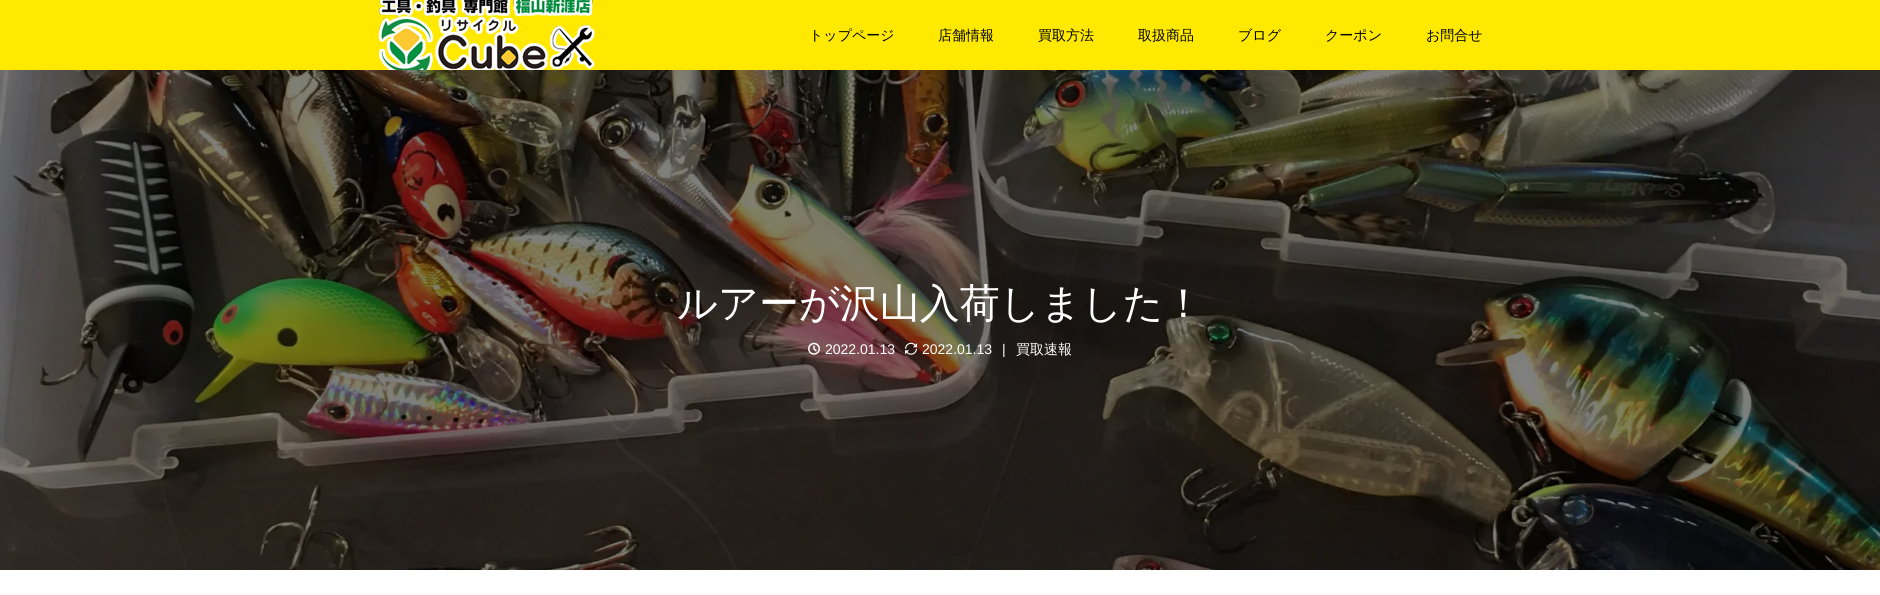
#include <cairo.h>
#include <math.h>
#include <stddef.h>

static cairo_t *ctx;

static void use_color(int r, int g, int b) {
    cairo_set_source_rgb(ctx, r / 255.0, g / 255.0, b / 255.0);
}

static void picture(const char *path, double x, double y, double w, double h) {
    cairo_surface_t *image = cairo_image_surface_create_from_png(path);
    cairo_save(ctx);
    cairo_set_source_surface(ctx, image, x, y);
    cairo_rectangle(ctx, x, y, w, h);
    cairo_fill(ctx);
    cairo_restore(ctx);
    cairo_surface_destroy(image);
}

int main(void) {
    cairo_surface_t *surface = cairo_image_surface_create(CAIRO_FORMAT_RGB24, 1880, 595);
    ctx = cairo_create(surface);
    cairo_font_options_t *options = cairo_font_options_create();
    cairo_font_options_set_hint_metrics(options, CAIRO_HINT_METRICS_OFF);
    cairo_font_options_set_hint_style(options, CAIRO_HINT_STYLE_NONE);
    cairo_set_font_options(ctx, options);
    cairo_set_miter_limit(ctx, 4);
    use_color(255, 255, 255);
    cairo_paint(ctx);
    use_color(255, 233, 0);
    cairo_rectangle(ctx, 0, 0, 1880, 70);
    cairo_fill(ctx);
    picture("img1.png", 378, 0, 217, 70);
    cairo_select_font_face(ctx, "WenQuanYi Zen Hei Medium", CAIRO_FONT_SLANT_NORMAL, CAIRO_FONT_WEIGHT_NORMAL);
    cairo_set_font_size(ctx, 14);
    use_color(0, 0, 0);
    cairo_move_to(ctx, 809, 40);
    cairo_show_text(ctx, "トップページ");
    cairo_move_to(ctx, 938, 40);
    cairo_show_text(ctx, "店舗情報");
    cairo_move_to(ctx, 1038, 40);
    cairo_show_text(ctx, "買取方法");
    cairo_move_to(ctx, 1138, 40);
    cairo_show_text(ctx, "取扱商品");
    cairo_move_to(ctx, 1238, 40);
    cairo_show_text(ctx, "ブログ");
    cairo_move_to(ctx, 1325, 40);
    cairo_show_text(ctx, "クーポン");
    cairo_move_to(ctx, 1426, 40);
    cairo_show_text(ctx, "お問合せ");
    picture("img2.png", 0, 70, 1880, 500);
    cairo_set_font_size(ctx, 40);
    use_color(255, 255, 255);
    cairo_move_to(ctx, 677, 317);
    cairo_show_text(ctx, "ルアーが沢山入荷しました！");
    picture("img3.png", 808, 342, 12, 13);
    cairo_select_font_face(ctx, "Liberation Sans", CAIRO_FONT_SLANT_NORMAL, CAIRO_FONT_WEIGHT_NORMAL);
    cairo_set_font_size(ctx, 14);
    cairo_move_to(ctx, 825, 354);
    cairo_show_text(ctx, "2022.01.13");
    picture("img4.png", 905, 342, 12, 13);
    cairo_move_to(ctx, 922, 354);
    cairo_show_text(ctx, "2022.01.13");
    cairo_move_to(ctx, 1002, 354);
    cairo_show_text(ctx, "|");
    cairo_select_font_face(ctx, "WenQuanYi Zen Hei Medium", CAIRO_FONT_SLANT_NORMAL, CAIRO_FONT_WEIGHT_NORMAL);
    cairo_move_to(ctx, 1016, 354);
    cairo_show_text(ctx, "買取速報");
    cairo_surface_write_to_png(surface, "result.png");
    cairo_font_options_destroy(options);
    cairo_destroy(ctx);
    cairo_surface_destroy(surface);
    return 0;
}
